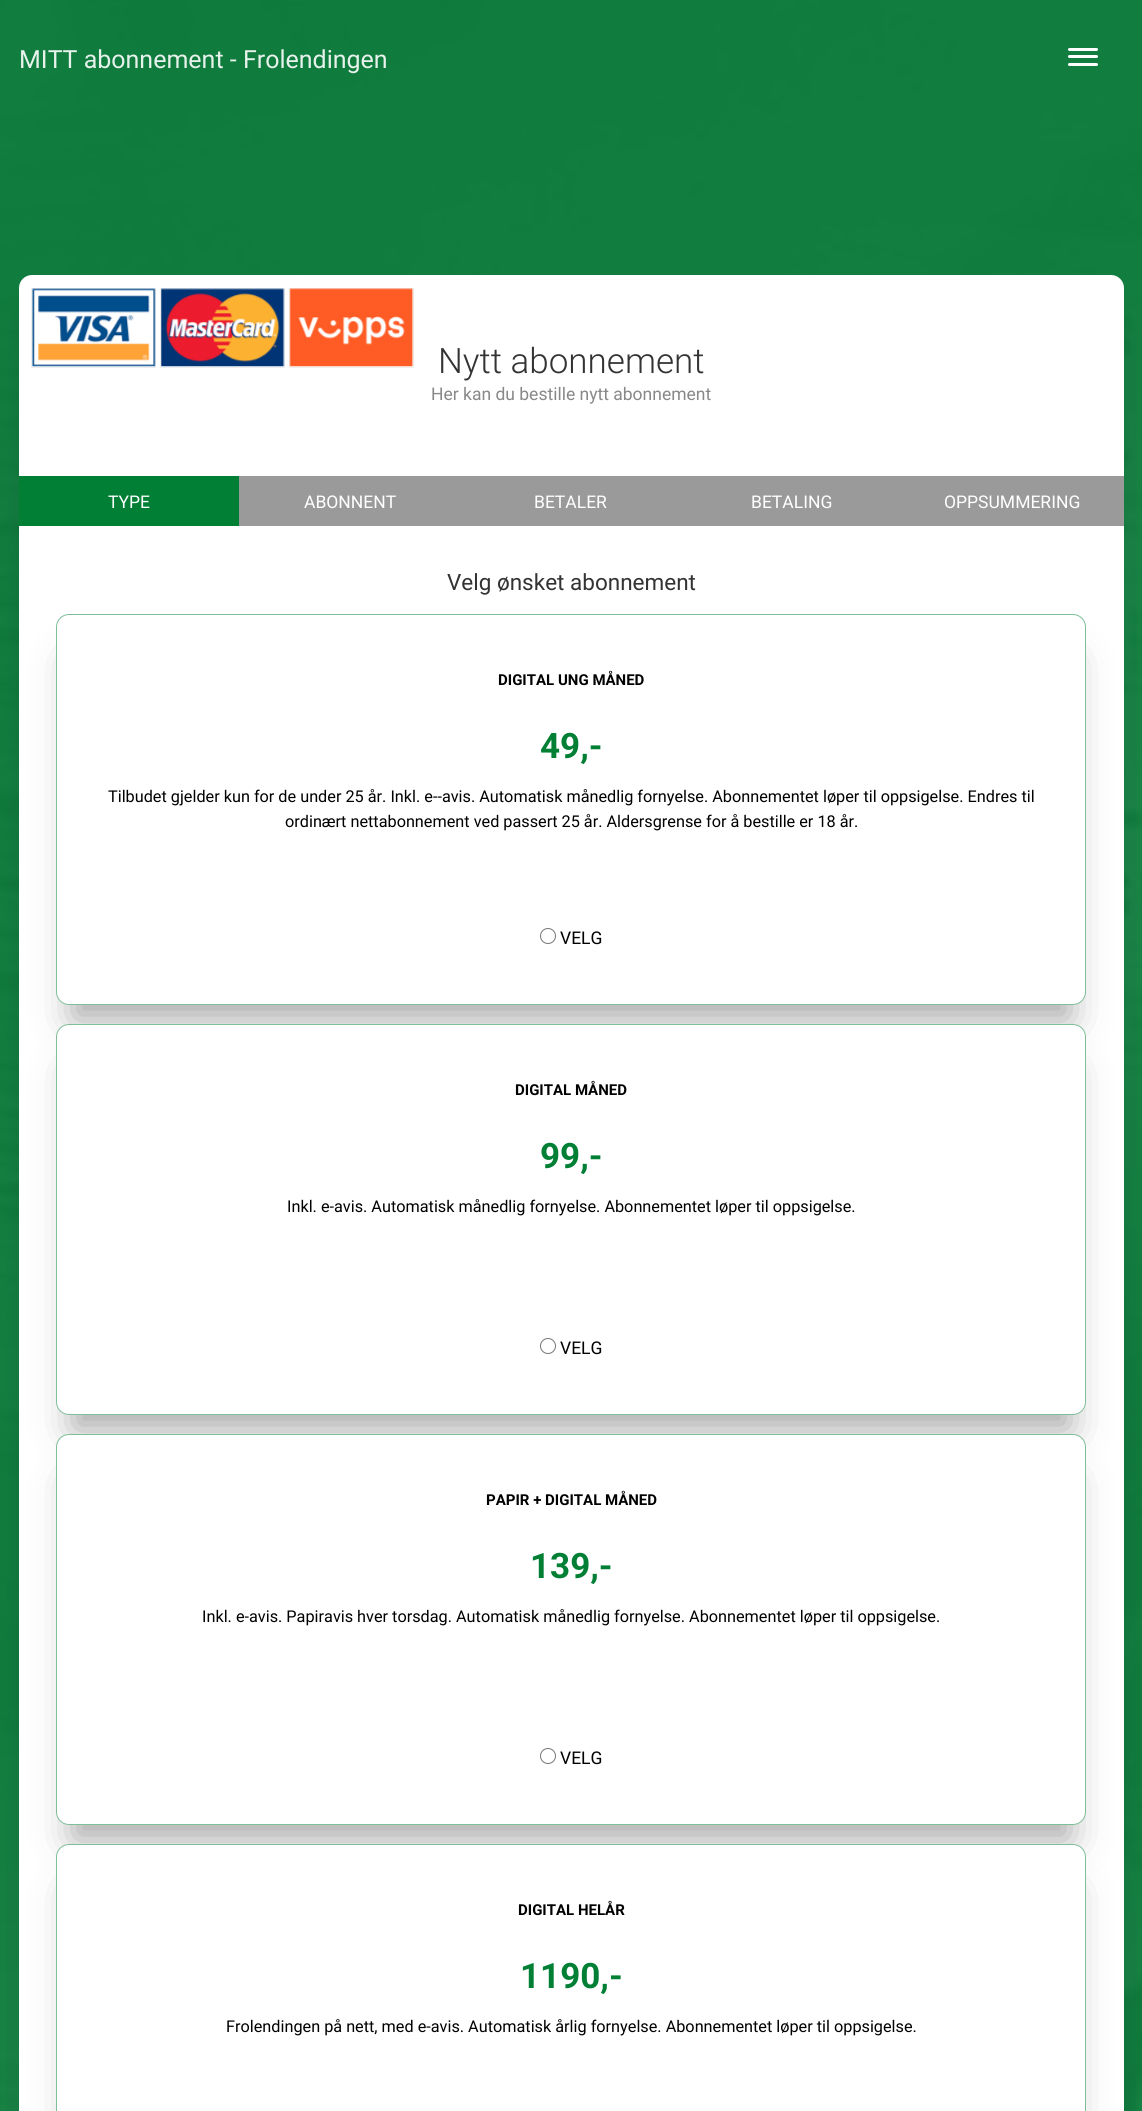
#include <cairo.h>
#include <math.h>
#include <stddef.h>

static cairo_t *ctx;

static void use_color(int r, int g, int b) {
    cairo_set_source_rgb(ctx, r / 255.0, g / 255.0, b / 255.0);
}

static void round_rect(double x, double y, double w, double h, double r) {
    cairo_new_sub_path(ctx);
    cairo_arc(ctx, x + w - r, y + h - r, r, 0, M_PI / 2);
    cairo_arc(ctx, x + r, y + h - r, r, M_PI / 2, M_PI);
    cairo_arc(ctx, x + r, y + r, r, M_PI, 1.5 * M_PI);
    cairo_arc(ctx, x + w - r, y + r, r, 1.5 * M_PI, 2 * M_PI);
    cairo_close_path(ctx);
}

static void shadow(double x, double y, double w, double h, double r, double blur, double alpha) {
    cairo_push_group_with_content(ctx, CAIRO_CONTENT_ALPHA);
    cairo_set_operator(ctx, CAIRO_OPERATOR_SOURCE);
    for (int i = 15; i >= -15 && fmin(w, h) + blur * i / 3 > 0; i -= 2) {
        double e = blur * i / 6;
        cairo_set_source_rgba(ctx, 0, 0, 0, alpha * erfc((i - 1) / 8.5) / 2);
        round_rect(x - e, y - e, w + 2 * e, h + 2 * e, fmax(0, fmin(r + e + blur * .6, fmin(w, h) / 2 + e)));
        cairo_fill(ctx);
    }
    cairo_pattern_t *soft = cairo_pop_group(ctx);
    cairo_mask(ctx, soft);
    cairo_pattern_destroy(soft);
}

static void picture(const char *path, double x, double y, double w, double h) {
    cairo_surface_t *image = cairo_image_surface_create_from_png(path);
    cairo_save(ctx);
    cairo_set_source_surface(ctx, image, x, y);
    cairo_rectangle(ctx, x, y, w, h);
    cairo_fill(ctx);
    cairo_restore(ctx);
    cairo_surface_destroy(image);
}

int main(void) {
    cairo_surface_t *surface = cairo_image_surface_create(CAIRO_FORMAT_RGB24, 1142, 2111);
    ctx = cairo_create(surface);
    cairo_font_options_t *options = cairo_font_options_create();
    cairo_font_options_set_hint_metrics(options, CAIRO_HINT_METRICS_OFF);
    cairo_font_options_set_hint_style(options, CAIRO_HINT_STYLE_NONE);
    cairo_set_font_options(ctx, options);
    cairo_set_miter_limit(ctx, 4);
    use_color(255, 255, 255);
    cairo_paint(ctx);
    picture("img1.png", 0, 0, 1142, 2111);
    cairo_select_font_face(ctx, "Roboto", CAIRO_FONT_SLANT_NORMAL, CAIRO_FONT_WEIGHT_NORMAL);
    cairo_set_font_size(ctx, 25);
    use_color(231, 242, 236);
    cairo_move_to(ctx, 19, 68);
    cairo_show_text(ctx, "MITT abonnement - Frolendingen");
    use_color(255, 255, 255);
    round_rect(1068, 48, 30, 3, 1.5);
    cairo_fill(ctx);
    round_rect(1068, 55, 30, 3, 1.5);
    cairo_fill(ctx);
    round_rect(1068, 63, 30, 3, 1.5);
    cairo_fill(ctx);
    use_color(40, 40, 40);
    shadow(35, 323, 1073, 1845, 0, 19, 0.4);
    use_color(255, 255, 255);
    round_rect(19, 275, 1105, 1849, 13);
    cairo_fill(ctx);
    cairo_rectangle(ctx, 31.5, 288.5, 124, 79);
    use_color(238, 238, 238);
    cairo_set_line_width(ctx, 1);
    cairo_stroke(ctx);
    picture("img2.png", 32, 288, 124, 79);
    cairo_rectangle(ctx, 160.5, 288.5, 124, 79);
    cairo_stroke(ctx);
    picture("img3.png", 161, 288, 124, 79);
    cairo_rectangle(ctx, 289.5, 288.5, 124, 79);
    cairo_stroke(ctx);
    picture("img4.png", 289, 288, 125, 79);
    cairo_select_font_face(ctx, "Roboto Light", CAIRO_FONT_SLANT_NORMAL, CAIRO_FONT_WEIGHT_NORMAL);
    cairo_set_font_size(ctx, 35);
    use_color(51, 51, 51);
    cairo_move_to(ctx, 438, 373);
    cairo_show_text(ctx, "Nytt abonnement");
    cairo_select_font_face(ctx, "Roboto", CAIRO_FONT_SLANT_NORMAL, CAIRO_FONT_WEIGHT_NORMAL);
    cairo_set_font_size(ctx, 17.5);
    use_color(136, 136, 136);
    cairo_move_to(ctx, 431, 400);
    cairo_show_text(ctx, "Her kan du bestille nytt abonnement");
    use_color(0, 127, 53);
    cairo_rectangle(ctx, 19, 476, 220, 50);
    cairo_fill(ctx);
    use_color(255, 255, 255);
    cairo_move_to(ctx, 108, 508);
    cairo_show_text(ctx, "TYPE");
    use_color(154, 154, 154);
    cairo_rectangle(ctx, 239, 476, 885, 50);
    cairo_fill(ctx);
    use_color(255, 255, 255);
    cairo_move_to(ctx, 304, 508);
    cairo_show_text(ctx, "ABONNENT");
    cairo_move_to(ctx, 534, 508);
    cairo_show_text(ctx, "BETALER");
    cairo_move_to(ctx, 751, 508);
    cairo_show_text(ctx, "BETALING");
    cairo_move_to(ctx, 944, 508);
    cairo_show_text(ctx, "OPPSUMMERING");
    cairo_set_font_size(ctx, 22.5);
    use_color(51, 51, 51);
    cairo_move_to(ctx, 447, 590);
    cairo_show_text(ctx, "Velg ønsket abonnement");
    use_color(40, 40, 40);
    shadow(73, 661, 997, 359, 0, 19, 0.4);
    use_color(255, 255, 255);
    round_rect(56, 614, 1030, 391, 13);
    cairo_fill(ctx);
    round_rect(56.5, 614.5, 1029, 390, 12.5);
    cairo_set_source_rgba(ctx, 0, 0.498, 0.208, 0.5);
    cairo_stroke(ctx);
    cairo_select_font_face(ctx, "Roboto", CAIRO_FONT_SLANT_NORMAL, CAIRO_FONT_WEIGHT_BOLD);
    cairo_set_font_size(ctx, 15);
    use_color(0, 0, 0);
    cairo_move_to(ctx, 498, 685);
    cairo_show_text(ctx, "DIGITAL UNG MÅNED");
    cairo_set_font_size(ctx, 35);
    use_color(0, 127, 53);
    cairo_move_to(ctx, 540, 758);
    cairo_show_text(ctx, "49,-");
    cairo_select_font_face(ctx, "Roboto", CAIRO_FONT_SLANT_NORMAL, CAIRO_FONT_WEIGHT_NORMAL);
    cairo_set_font_size(ctx, 16.25);
    use_color(0, 0, 0);
    cairo_move_to(ctx, 108, 802);
    cairo_show_text(ctx, "Tilbudet gjelder kun for de under 25 år. Inkl. e--avis. Automatisk månedlig fornyelse. Abonnementet løper til oppsigelse. Endres til");
    cairo_move_to(ctx, 285, 827);
    cairo_show_text(ctx, "ordinært nettabonnement ved passert 25 år. Aldersgrense for å bestille er 18 år.");
    cairo_new_path(ctx);
    cairo_arc(ctx, 548, 936, 7.5, 0, 2 * M_PI);
    use_color(118, 118, 118);
    cairo_stroke(ctx);
    cairo_set_font_size(ctx, 17.5);
    use_color(0, 0, 0);
    cairo_move_to(ctx, 560, 944);
    cairo_show_text(ctx, "VELG");
    use_color(40, 40, 40);
    shadow(73, 1071, 997, 359, 0, 19, 0.4);
    use_color(255, 255, 255);
    round_rect(56, 1024, 1030, 391, 13);
    cairo_fill(ctx);
    round_rect(56.5, 1024.5, 1029, 390, 12.5);
    cairo_set_source_rgba(ctx, 0, 0.498, 0.208, 0.5);
    cairo_stroke(ctx);
    cairo_select_font_face(ctx, "Roboto", CAIRO_FONT_SLANT_NORMAL, CAIRO_FONT_WEIGHT_BOLD);
    cairo_set_font_size(ctx, 15);
    use_color(0, 0, 0);
    cairo_move_to(ctx, 515, 1095);
    cairo_show_text(ctx, "DIGITAL MÅNED");
    cairo_set_font_size(ctx, 35);
    use_color(0, 127, 53);
    cairo_move_to(ctx, 540, 1168);
    cairo_show_text(ctx, "99,-");
    cairo_select_font_face(ctx, "Roboto", CAIRO_FONT_SLANT_NORMAL, CAIRO_FONT_WEIGHT_NORMAL);
    cairo_set_font_size(ctx, 16.25);
    use_color(0, 0, 0);
    cairo_move_to(ctx, 287, 1212);
    cairo_show_text(ctx, "Inkl. e-avis. Automatisk månedlig fornyelse. Abonnementet løper til oppsigelse.");
    cairo_new_path(ctx);
    cairo_arc(ctx, 548, 1346, 7.5, 0, 2 * M_PI);
    use_color(118, 118, 118);
    cairo_stroke(ctx);
    cairo_set_font_size(ctx, 17.5);
    use_color(0, 0, 0);
    cairo_move_to(ctx, 560, 1354);
    cairo_show_text(ctx, "VELG");
    use_color(40, 40, 40);
    shadow(73, 1481, 997, 359, 0, 19, 0.4);
    use_color(255, 255, 255);
    round_rect(56, 1434, 1030, 391, 13);
    cairo_fill(ctx);
    round_rect(56.5, 1434.5, 1029, 390, 12.5);
    cairo_set_source_rgba(ctx, 0, 0.498, 0.208, 0.5);
    cairo_stroke(ctx);
    cairo_select_font_face(ctx, "Roboto", CAIRO_FONT_SLANT_NORMAL, CAIRO_FONT_WEIGHT_BOLD);
    cairo_set_font_size(ctx, 15);
    use_color(0, 0, 0);
    cairo_move_to(ctx, 486, 1505);
    cairo_show_text(ctx, "PAPIR + DIGITAL MÅNED");
    cairo_set_font_size(ctx, 35);
    use_color(0, 127, 53);
    cairo_move_to(ctx, 530, 1578);
    cairo_show_text(ctx, "139,-");
    cairo_select_font_face(ctx, "Roboto", CAIRO_FONT_SLANT_NORMAL, CAIRO_FONT_WEIGHT_NORMAL);
    cairo_set_font_size(ctx, 16.25);
    use_color(0, 0, 0);
    cairo_move_to(ctx, 202, 1622);
    cairo_show_text(ctx, "Inkl. e-avis. Papiravis hver torsdag. Automatisk månedlig fornyelse. Abonnementet løper til oppsigelse.");
    cairo_new_path(ctx);
    cairo_arc(ctx, 548, 1756, 7.5, 0, 2 * M_PI);
    use_color(118, 118, 118);
    cairo_stroke(ctx);
    cairo_set_font_size(ctx, 17.5);
    use_color(0, 0, 0);
    cairo_move_to(ctx, 560, 1764);
    cairo_show_text(ctx, "VELG");
    use_color(40, 40, 40);
    shadow(73, 1891, 997, 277, 0, 19, 0.4);
    use_color(255, 255, 255);
    round_rect(56, 1844, 1030, 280, 13);
    cairo_fill(ctx);
    round_rect(56.5, 1844.5, 1029, 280, 12.5);
    cairo_set_source_rgba(ctx, 0, 0.498, 0.208, 0.5);
    cairo_stroke(ctx);
    cairo_select_font_face(ctx, "Roboto", CAIRO_FONT_SLANT_NORMAL, CAIRO_FONT_WEIGHT_BOLD);
    cairo_set_font_size(ctx, 15);
    use_color(0, 0, 0);
    cairo_move_to(ctx, 518, 1915);
    cairo_show_text(ctx, "DIGITAL HELÅR");
    cairo_set_font_size(ctx, 35);
    use_color(0, 127, 53);
    cairo_move_to(ctx, 520, 1988);
    cairo_show_text(ctx, "1190,-");
    cairo_select_font_face(ctx, "Roboto", CAIRO_FONT_SLANT_NORMAL, CAIRO_FONT_WEIGHT_NORMAL);
    cairo_set_font_size(ctx, 16.25);
    use_color(0, 0, 0);
    cairo_move_to(ctx, 226, 2032);
    cairo_show_text(ctx, "Frolendingen på nett, med e-avis. Automatisk årlig fornyelse. Abonnementet løper til oppsigelse.");
    cairo_surface_write_to_png(surface, "result.png");
    cairo_font_options_destroy(options);
    cairo_destroy(ctx);
    cairo_surface_destroy(surface);
    return 0;
}
